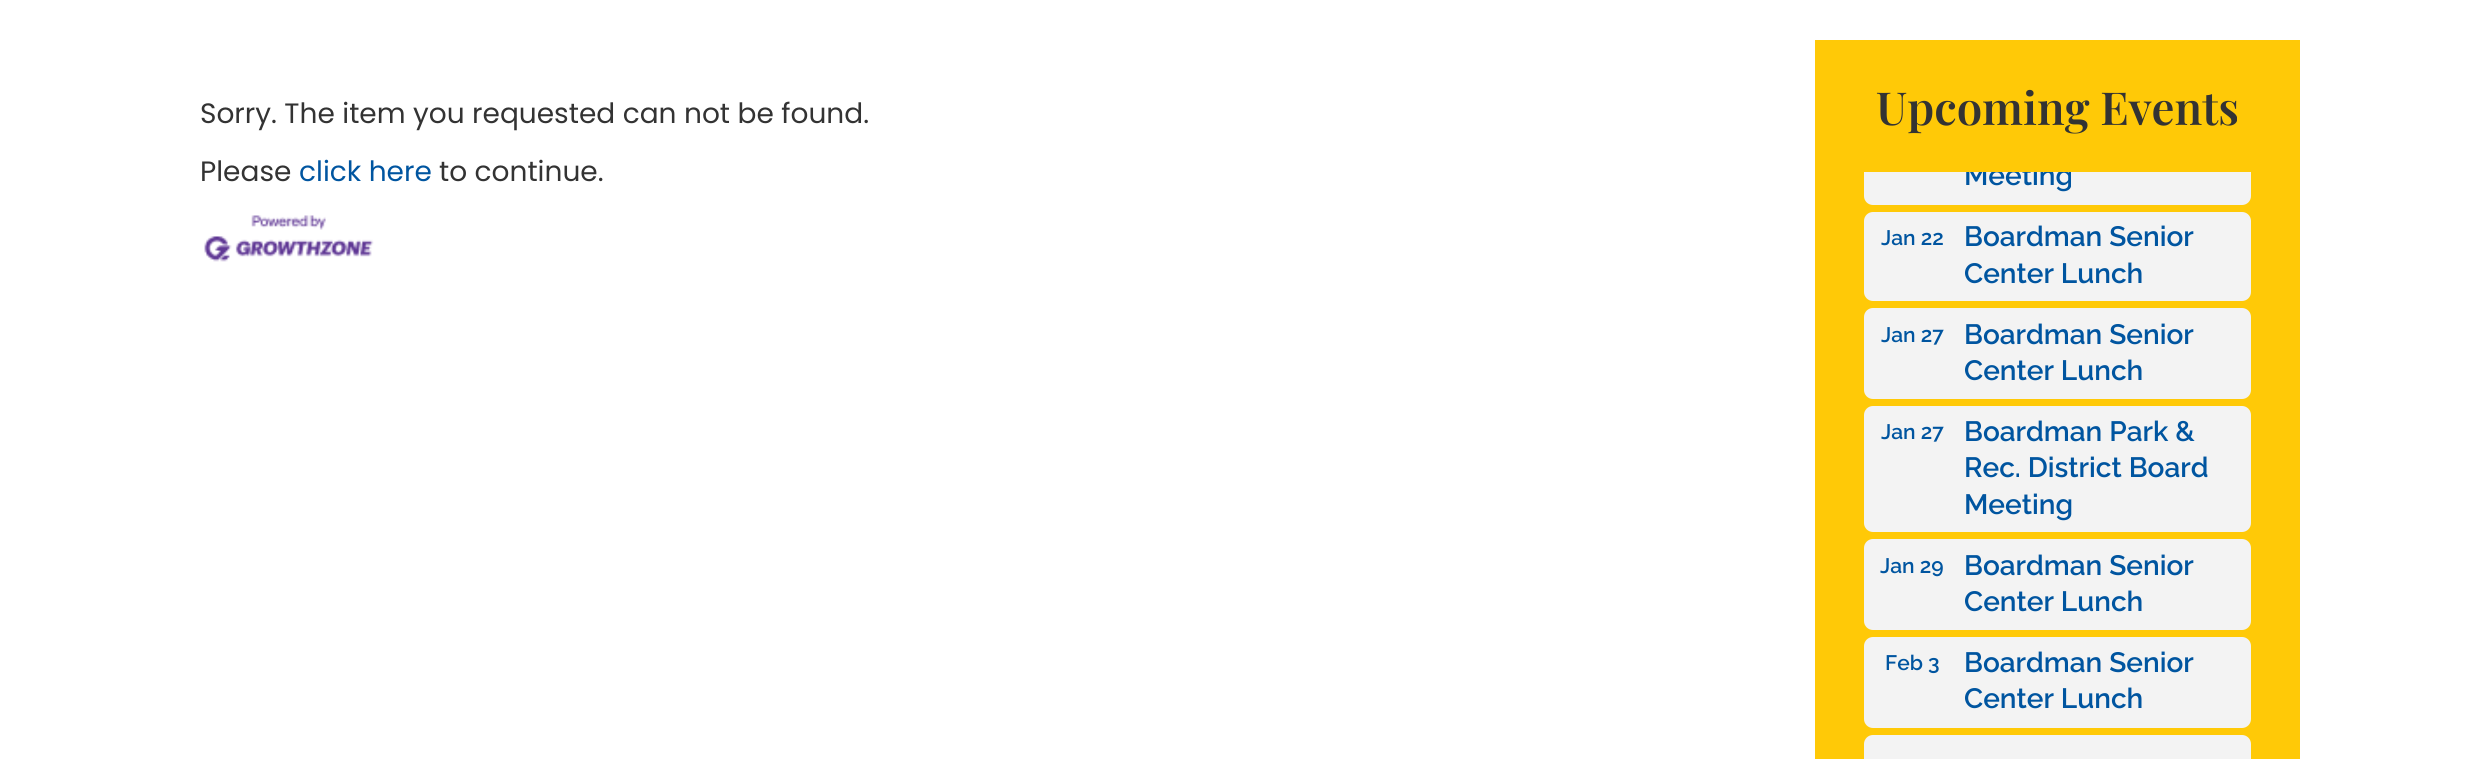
#include <cairo.h>
#include <math.h>
#include <stddef.h>

static cairo_t *ctx;

static void use_color(int r, int g, int b) {
    cairo_set_source_rgb(ctx, r / 255.0, g / 255.0, b / 255.0);
}

static void round_rect(double x, double y, double w, double h, double r) {
    cairo_new_sub_path(ctx);
    cairo_arc(ctx, x + w - r, y + h - r, r, 0, M_PI / 2);
    cairo_arc(ctx, x + r, y + h - r, r, M_PI / 2, M_PI);
    cairo_arc(ctx, x + r, y + r, r, M_PI, 1.5 * M_PI);
    cairo_arc(ctx, x + w - r, y + r, r, 1.5 * M_PI, 2 * M_PI);
    cairo_close_path(ctx);
}

static void picture(const char *path, double x, double y, double w, double h) {
    cairo_surface_t *image = cairo_image_surface_create_from_png(path);
    cairo_save(ctx);
    cairo_set_source_surface(ctx, image, x, y);
    cairo_rectangle(ctx, x, y, w, h);
    cairo_fill(ctx);
    cairo_restore(ctx);
    cairo_surface_destroy(image);
}

int main(void) {
    cairo_surface_t *surface = cairo_image_surface_create(CAIRO_FORMAT_RGB24, 2465, 759);
    ctx = cairo_create(surface);
    cairo_font_options_t *options = cairo_font_options_create();
    cairo_font_options_set_hint_metrics(options, CAIRO_HINT_METRICS_OFF);
    cairo_font_options_set_hint_style(options, CAIRO_HINT_STYLE_NONE);
    cairo_set_font_options(ctx, options);
    cairo_set_miter_limit(ctx, 4);
    use_color(255, 255, 255);
    cairo_paint(ctx);
    cairo_select_font_face(ctx, "Poppins", CAIRO_FONT_SLANT_NORMAL, CAIRO_FONT_WEIGHT_NORMAL);
    cairo_set_font_size(ctx, 28);
    use_color(51, 51, 51);
    cairo_move_to(ctx, 200, 123);
    cairo_show_text(ctx, "Sorry. The item you requested can not be found.");
    cairo_move_to(ctx, 200, 181);
    cairo_show_text(ctx, "Please");
    use_color(0, 85, 160);
    cairo_move_to(ctx, 299, 181);
    cairo_show_text(ctx, "click here");
    use_color(51, 51, 51);
    cairo_move_to(ctx, 439, 181);
    cairo_show_text(ctx, "to continue.");
    picture("img1.png", 204, 215, 170, 47);
    use_color(255, 201, 7);
    cairo_rectangle(ctx, 1815, 40, 485, 719);
    cairo_fill(ctx);
    cairo_select_font_face(ctx, "Playfair Display SemiBold", CAIRO_FONT_SLANT_NORMAL, CAIRO_FONT_WEIGHT_NORMAL);
    cairo_set_font_size(ctx, 45.5);
    use_color(51, 51, 51);
    cairo_move_to(ctx, 1876, 125);
    cairo_show_text(ctx, "Upcoming Events");
    use_color(243, 243, 243);
    cairo_new_path(ctx);
    cairo_move_to(ctx, 1864, 172);
    cairo_line_to(ctx, 2251, 172);
    cairo_line_to(ctx, 2251, 196);
    cairo_curve_to(ctx, 2251, 201, 2247, 205, 2242, 205);
    cairo_line_to(ctx, 1873, 205);
    cairo_curve_to(ctx, 1868, 205, 1864, 201, 1864, 196);
    cairo_close_path(ctx);
    cairo_fill(ctx);
    cairo_save(ctx);
    cairo_rectangle(ctx, 1864, 172, 387, 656);
    cairo_clip(ctx);
    cairo_select_font_face(ctx, "Raleway Thin", CAIRO_FONT_SLANT_NORMAL, CAIRO_FONT_WEIGHT_NORMAL);
    cairo_set_font_size(ctx, 28);
    use_color(0, 85, 160);
    cairo_move_to(ctx, 1964, 185);
    cairo_show_text(ctx, "Meeting");
    cairo_restore(ctx);
    round_rect(1864, 212, 387, 89, 9);
    cairo_fill(ctx);
    cairo_select_font_face(ctx, "Raleway Thin", CAIRO_FONT_SLANT_NORMAL, CAIRO_FONT_WEIGHT_NORMAL);
    cairo_set_font_size(ctx, 21);
    use_color(0, 85, 160);
    cairo_move_to(ctx, 1881, 245);
    cairo_show_text(ctx, "Jan 22");
    cairo_set_font_size(ctx, 28);
    cairo_move_to(ctx, 1964, 246);
    cairo_show_text(ctx, "Boardman Senior");
    cairo_move_to(ctx, 1964, 283);
    cairo_show_text(ctx, "Center Lunch");
    use_color(243, 243, 243);
    round_rect(1864, 308, 387, 91, 9);
    cairo_fill(ctx);
    cairo_set_font_size(ctx, 21);
    use_color(0, 85, 160);
    cairo_move_to(ctx, 1881, 342);
    cairo_show_text(ctx, "Jan 27");
    cairo_set_font_size(ctx, 28);
    cairo_move_to(ctx, 1964, 344);
    cairo_show_text(ctx, "Boardman Senior");
    cairo_move_to(ctx, 1964, 380);
    cairo_show_text(ctx, "Center Lunch");
    use_color(243, 243, 243);
    round_rect(1864, 406, 387, 126, 9);
    cairo_fill(ctx);
    cairo_set_font_size(ctx, 21);
    use_color(0, 85, 160);
    cairo_move_to(ctx, 1881, 439);
    cairo_show_text(ctx, "Jan 27");
    cairo_set_font_size(ctx, 28);
    cairo_move_to(ctx, 1964, 441);
    cairo_show_text(ctx, "Boardman Park &");
    cairo_move_to(ctx, 1964, 477);
    cairo_show_text(ctx, "Rec. District Board");
    cairo_move_to(ctx, 1964, 514);
    cairo_show_text(ctx, "Meeting");
    use_color(243, 243, 243);
    round_rect(1864, 539, 387, 91, 9);
    cairo_fill(ctx);
    cairo_set_font_size(ctx, 21);
    use_color(0, 85, 160);
    cairo_move_to(ctx, 1880, 573);
    cairo_show_text(ctx, "Jan 29");
    cairo_set_font_size(ctx, 28);
    cairo_move_to(ctx, 1964, 575);
    cairo_show_text(ctx, "Boardman Senior");
    cairo_move_to(ctx, 1964, 611);
    cairo_show_text(ctx, "Center Lunch");
    use_color(243, 243, 243);
    round_rect(1864, 637, 387, 91, 9);
    cairo_fill(ctx);
    cairo_set_font_size(ctx, 21);
    use_color(0, 85, 160);
    cairo_move_to(ctx, 1885, 670);
    cairo_show_text(ctx, "Feb 3");
    cairo_set_font_size(ctx, 28);
    cairo_move_to(ctx, 1964, 672);
    cairo_show_text(ctx, "Boardman Senior");
    cairo_move_to(ctx, 1964, 708);
    cairo_show_text(ctx, "Center Lunch");
    use_color(243, 243, 243);
    round_rect(1864, 735, 387, 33, 9);
    cairo_fill(ctx);
    cairo_surface_write_to_png(surface, "result.png");
    cairo_font_options_destroy(options);
    cairo_destroy(ctx);
    cairo_surface_destroy(surface);
    return 0;
}
